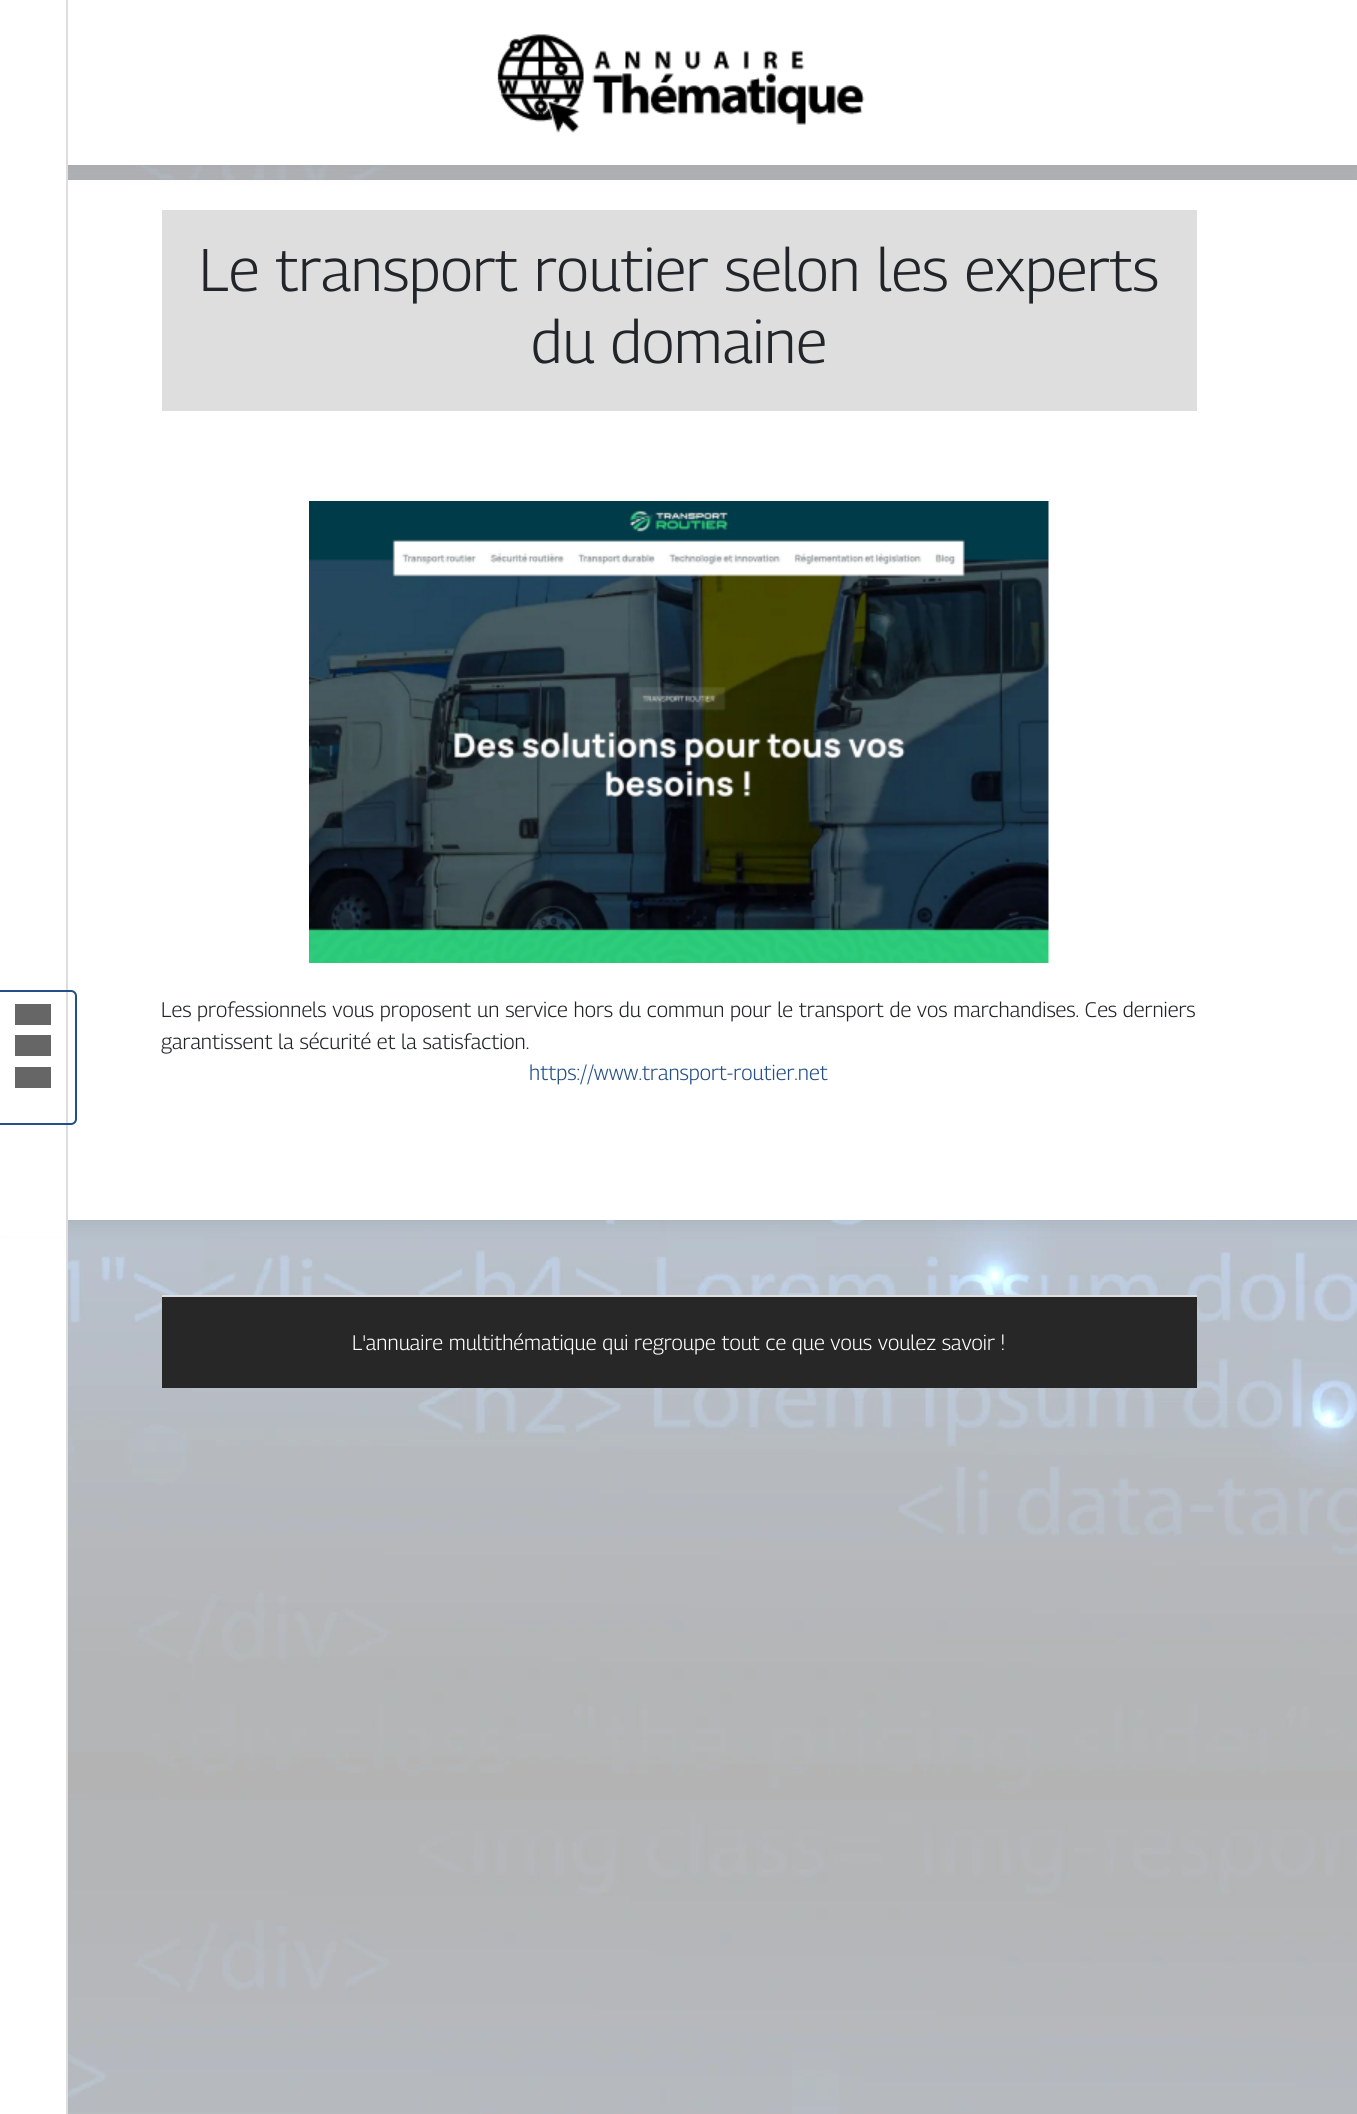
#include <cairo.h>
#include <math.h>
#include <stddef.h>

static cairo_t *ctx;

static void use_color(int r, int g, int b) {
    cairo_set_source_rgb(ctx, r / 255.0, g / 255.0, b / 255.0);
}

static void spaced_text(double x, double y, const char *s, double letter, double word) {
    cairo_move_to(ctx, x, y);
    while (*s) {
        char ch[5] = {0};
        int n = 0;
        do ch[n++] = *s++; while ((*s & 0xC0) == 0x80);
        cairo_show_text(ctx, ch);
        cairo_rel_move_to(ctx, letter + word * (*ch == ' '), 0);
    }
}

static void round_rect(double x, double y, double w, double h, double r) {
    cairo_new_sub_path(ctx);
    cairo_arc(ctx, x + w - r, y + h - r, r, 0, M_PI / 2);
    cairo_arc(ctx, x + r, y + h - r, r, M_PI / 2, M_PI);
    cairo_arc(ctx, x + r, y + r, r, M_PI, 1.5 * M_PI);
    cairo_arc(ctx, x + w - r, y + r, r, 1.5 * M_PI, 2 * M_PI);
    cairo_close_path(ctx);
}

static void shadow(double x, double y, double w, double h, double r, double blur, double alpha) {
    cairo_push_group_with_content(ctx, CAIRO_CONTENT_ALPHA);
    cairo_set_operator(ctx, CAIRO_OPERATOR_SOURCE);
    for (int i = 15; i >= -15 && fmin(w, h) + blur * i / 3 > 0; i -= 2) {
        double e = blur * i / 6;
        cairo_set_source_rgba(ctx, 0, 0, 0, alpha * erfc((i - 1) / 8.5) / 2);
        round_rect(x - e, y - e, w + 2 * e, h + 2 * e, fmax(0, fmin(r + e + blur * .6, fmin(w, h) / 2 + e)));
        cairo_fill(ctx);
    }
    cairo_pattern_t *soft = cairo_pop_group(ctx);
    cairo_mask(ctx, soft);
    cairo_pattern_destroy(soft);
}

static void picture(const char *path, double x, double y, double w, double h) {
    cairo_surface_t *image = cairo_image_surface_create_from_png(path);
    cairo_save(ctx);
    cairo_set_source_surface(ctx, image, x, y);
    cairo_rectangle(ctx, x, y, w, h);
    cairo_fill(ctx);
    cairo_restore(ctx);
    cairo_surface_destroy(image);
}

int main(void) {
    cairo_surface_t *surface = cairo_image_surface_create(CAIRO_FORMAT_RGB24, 1357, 2114);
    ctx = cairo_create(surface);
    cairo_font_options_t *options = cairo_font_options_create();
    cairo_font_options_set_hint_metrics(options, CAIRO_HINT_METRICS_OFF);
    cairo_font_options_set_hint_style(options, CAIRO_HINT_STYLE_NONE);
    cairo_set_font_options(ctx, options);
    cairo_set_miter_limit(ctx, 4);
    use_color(255, 255, 255);
    cairo_paint(ctx);
    picture("img1.png", 68, 165, 1289, 1949);
    use_color(0, 0, 0);
    shadow(0, 183, 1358, 1040, 0, 10, 0.1);
    use_color(255, 255, 255);
    cairo_rectangle(ctx, 68, 180, 1289, 1040);
    cairo_fill(ctx);
    use_color(0, 0, 0);
    shadow(0, 3, 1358, 165, 0, 10, 0.1);
    use_color(255, 255, 255);
    cairo_rectangle(ctx, 68, 0, 1289, 165);
    cairo_fill(ctx);
    cairo_rectangle(ctx, 0, 0, 66, 1236);
    cairo_fill(ctx);
    use_color(221, 221, 221);
    cairo_rectangle(ctx, 66, 0, 2, 2114);
    cairo_fill(ctx);
    round_rect(-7, 991, 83, 133, 5);
    use_color(36, 79, 134);
    cairo_stroke(ctx);
    use_color(102, 102, 102);
    cairo_rectangle(ctx, 15, 1004, 36, 21);
    cairo_fill(ctx);
    cairo_rectangle(ctx, 15, 1035, 36, 21);
    cairo_fill(ctx);
    cairo_rectangle(ctx, 15, 1067, 36, 21);
    cairo_fill(ctx);
    picture("img2.png", 497, 34, 368, 99);
    use_color(222, 222, 222);
    cairo_rectangle(ctx, 162, 210, 1035, 201);
    cairo_fill(ctx);
    cairo_select_font_face(ctx, "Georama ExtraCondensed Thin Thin", CAIRO_FONT_SLANT_NORMAL, CAIRO_FONT_WEIGHT_NORMAL);
    cairo_set_font_size(ctx, 60);
    use_color(33, 37, 41);
    cairo_move_to(ctx, 199, 291);
    cairo_show_text(ctx, "Le transport routier selon les experts");
    cairo_move_to(ctx, 531, 363);
    cairo_show_text(ctx, "du domaine");
    picture("img3.png", 309, 501, 740, 462);
    cairo_set_font_size(ctx, 21);
    spaced_text(161, 1017, "Les professionnels vous proposent un service hors du commun pour le transport de vos marchandises. Ces derniers", 0, 0.1);
    cairo_move_to(ctx, 161, 1049);
    cairo_show_text(ctx, "garantissent la sécurité et la satisfaction.");
    use_color(36, 79, 134);
    cairo_move_to(ctx, 529, 1080);
    cairo_show_text(ctx, "https://www.transport-routier.net");
    use_color(39, 39, 39);
    cairo_rectangle(ctx, 162, 1297, 1035, 91);
    cairo_fill(ctx);
    use_color(221, 221, 221);
    cairo_rectangle(ctx, 162, 1295, 1035, 2);
    cairo_fill(ctx);
    use_color(255, 255, 255);
    cairo_move_to(ctx, 352, 1350);
    cairo_show_text(ctx, "L'annuaire multithématique qui regroupe tout ce que vous voulez savoir !");
    cairo_surface_write_to_png(surface, "result.png");
    cairo_font_options_destroy(options);
    cairo_destroy(ctx);
    cairo_surface_destroy(surface);
    return 0;
}
